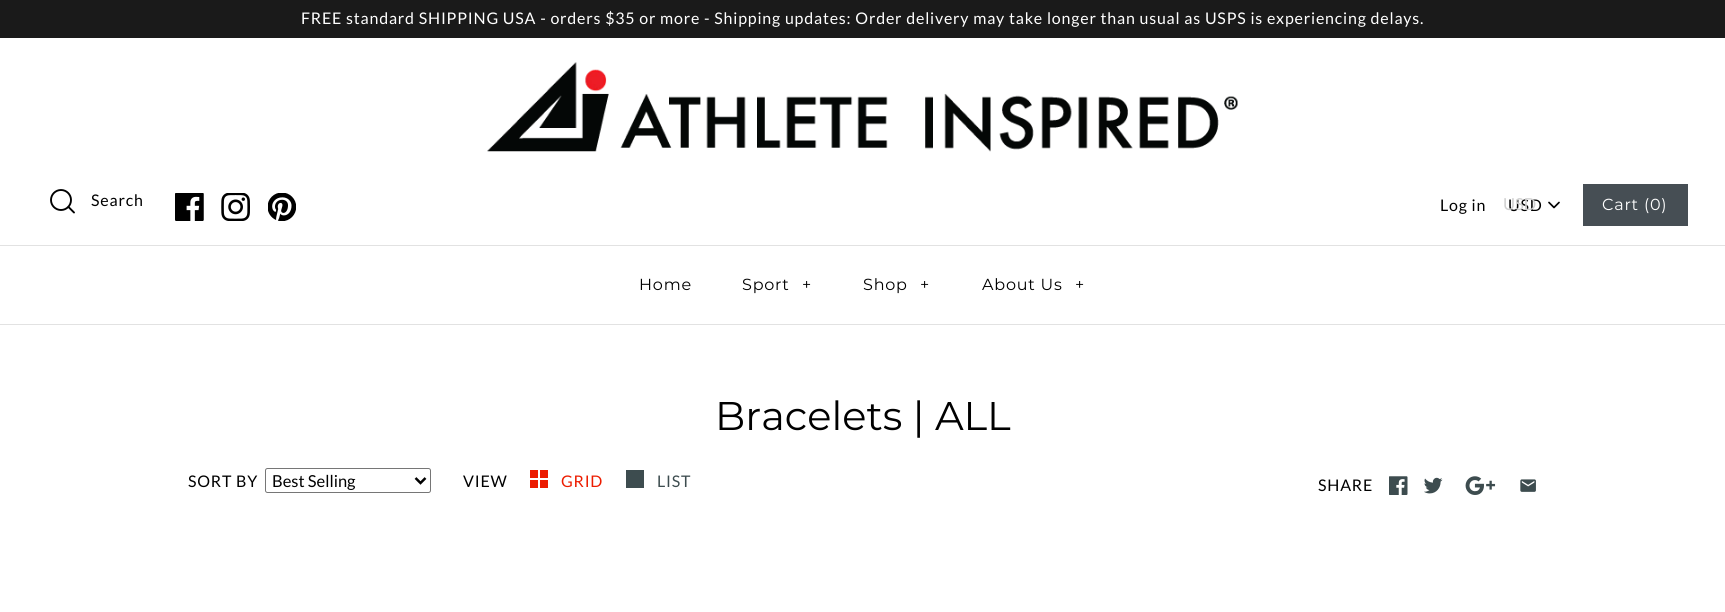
#include <cairo.h>
#include <math.h>
#include <stddef.h>

static cairo_t *ctx;

static void use_color(int r, int g, int b) {
    cairo_set_source_rgb(ctx, r / 255.0, g / 255.0, b / 255.0);
}

static void spaced_text(double x, double y, const char *s, double letter, double word) {
    cairo_move_to(ctx, x, y);
    while (*s) {
        char ch[5] = {0};
        int n = 0;
        do ch[n++] = *s++; while ((*s & 0xC0) == 0x80);
        cairo_show_text(ctx, ch);
        cairo_rel_move_to(ctx, letter + word * (*ch == ' '), 0);
    }
}

static void round_rect(double x, double y, double w, double h, double r) {
    cairo_new_sub_path(ctx);
    cairo_arc(ctx, x + w - r, y + h - r, r, 0, M_PI / 2);
    cairo_arc(ctx, x + r, y + h - r, r, M_PI / 2, M_PI);
    cairo_arc(ctx, x + r, y + r, r, M_PI, 1.5 * M_PI);
    cairo_arc(ctx, x + w - r, y + r, r, 1.5 * M_PI, 2 * M_PI);
    cairo_close_path(ctx);
}

static void picture(const char *path, double x, double y, double w, double h) {
    cairo_surface_t *image = cairo_image_surface_create_from_png(path);
    cairo_save(ctx);
    cairo_set_source_surface(ctx, image, x, y);
    cairo_rectangle(ctx, x, y, w, h);
    cairo_fill(ctx);
    cairo_restore(ctx);
    cairo_surface_destroy(image);
}

int main(void) {
    cairo_surface_t *surface = cairo_image_surface_create(CAIRO_FORMAT_RGB24, 1725, 612);
    ctx = cairo_create(surface);
    cairo_font_options_t *options = cairo_font_options_create();
    cairo_font_options_set_hint_metrics(options, CAIRO_HINT_METRICS_OFF);
    cairo_font_options_set_hint_style(options, CAIRO_HINT_STYLE_NONE);
    cairo_set_font_options(ctx, options);
    cairo_set_miter_limit(ctx, 4);
    use_color(255, 255, 255);
    cairo_paint(ctx);
    use_color(26, 26, 26);
    cairo_rectangle(ctx, 0, 0, 1725, 38);
    cairo_fill(ctx);
    cairo_select_font_face(ctx, "Lato", CAIRO_FONT_SLANT_NORMAL, CAIRO_FONT_WEIGHT_NORMAL);
    cairo_set_font_size(ctx, 16);
    use_color(255, 255, 255);
    spaced_text(301, 24, "FREE standard SHIPPING USA - orders $35 or more - Shipping updates: Order delivery may take longer than usual as USPS is experiencing delays.", 0.8, 0);
    picture("img1.png", 487, 62, 751, 90);
    cairo_arc(ctx, 61, 200, 10, 0, 2 * M_PI);
    use_color(0, 0, 0);
    cairo_set_line_width(ctx, 1.9);
    cairo_stroke(ctx);
    cairo_new_path(ctx);
    cairo_move_to(ctx, 74, 212.5);
    cairo_line_to(ctx, 68.5, 207);
    cairo_set_line_cap(ctx, CAIRO_LINE_CAP_ROUND);
    cairo_set_line_join(ctx, CAIRO_LINE_JOIN_ROUND);
    cairo_stroke(ctx);
    spaced_text(91, 206, "Search", 0.8, 0);
    picture("img2.png", 175, 193, 29, 28);
    picture("img3.png", 221, 193, 29, 28);
    picture("img4.png", 268, 193, 28, 28);
    spaced_text(1440, 211, "Log in", 0.8, 0);
    spaced_text(1508, 211, "USD", 0.8, 0);
    cairo_set_font_size(ctx, 16.5);
    use_color(208, 208, 208);
    cairo_move_to(ctx, 1503, 210);
    cairo_show_text(ctx, "USD");
    cairo_new_path(ctx);
    cairo_move_to(ctx, 1549, 202.5);
    cairo_line_to(ctx, 1554, 207.5);
    cairo_line_to(ctx, 1559, 202.5);
    use_color(0, 0, 0);
    cairo_set_line_width(ctx, 1.7);
    cairo_stroke(ctx);
    use_color(70, 78, 84);
    cairo_rectangle(ctx, 1583, 184, 105, 42);
    cairo_fill(ctx);
    cairo_select_font_face(ctx, "Montserrat", CAIRO_FONT_SLANT_NORMAL, CAIRO_FONT_WEIGHT_NORMAL);
    cairo_set_font_size(ctx, 16);
    use_color(255, 255, 255);
    spaced_text(1602, 210, "Cart (0)", 0.8, 0);
    use_color(226, 226, 226);
    cairo_rectangle(ctx, 0, 324, 1725, 1);
    cairo_fill(ctx);
    cairo_rectangle(ctx, 0, 245, 1725, 1);
    cairo_fill(ctx);
    use_color(0, 0, 0);
    spaced_text(639, 290, "Home", 0.8, 0);
    spaced_text(742, 290, "Sport", 0.8, 0);
    spaced_text(802, 290, "+", 0.8, 0);
    spaced_text(863, 290, "Shop", 0.8, 0);
    spaced_text(920, 290, "+", 0.8, 0);
    spaced_text(982, 290, "About Us", 0.8, 0);
    spaced_text(1075, 290, "+", 0.8, 0);
    cairo_set_font_size(ctx, 40);
    cairo_move_to(ctx, 715, 430);
    cairo_show_text(ctx, "Bracelets | ALL");
    cairo_select_font_face(ctx, "Lato", CAIRO_FONT_SLANT_NORMAL, CAIRO_FONT_WEIGHT_NORMAL);
    cairo_set_font_size(ctx, 16);
    spaced_text(188, 487, "SORT BY", 0.8, 0);
    round_rect(265.5, 468.5, 165, 24, 2);
    use_color(118, 118, 118);
    cairo_set_line_width(ctx, 1);
    cairo_set_line_cap(ctx, CAIRO_LINE_CAP_BUTT);
    cairo_set_line_join(ctx, CAIRO_LINE_JOIN_MITER);
    cairo_stroke(ctx);
    cairo_new_path(ctx);
    cairo_move_to(ctx, 415.5, 478);
    cairo_line_to(ctx, 420.5, 483);
    cairo_line_to(ctx, 425.5, 478);
    use_color(0, 0, 0);
    cairo_set_line_width(ctx, 2.5);
    cairo_stroke(ctx);
    cairo_set_font_size(ctx, 16.5);
    cairo_move_to(ctx, 272, 487);
    cairo_show_text(ctx, "Best Selling");
    cairo_set_font_size(ctx, 16);
    spaced_text(463, 487, "VIEW", 0.8, 0);
    use_color(236, 28, 0);
    cairo_rectangle(ctx, 530, 470, 8, 8);
    cairo_fill(ctx);
    cairo_rectangle(ctx, 540, 470, 8, 8);
    cairo_fill(ctx);
    cairo_rectangle(ctx, 530, 480, 8, 8);
    cairo_fill(ctx);
    cairo_rectangle(ctx, 540, 480, 8, 8);
    cairo_fill(ctx);
    spaced_text(561, 487, "GRID", 0.8, 0);
    use_color(61, 76, 79);
    cairo_rectangle(ctx, 626, 470, 18, 18);
    cairo_fill(ctx);
    spaced_text(657, 487, "LIST", 0.8, 0);
    use_color(0, 0, 0);
    spaced_text(1318, 491, "SHARE", 0.8, 0);
    picture("img5.png", 1389, 476, 19, 19);
    picture("img6.png", 1424, 477, 19, 17);
    picture("img7.png", 1465, 476, 31, 19);
    picture("img8.png", 1520, 479, 16, 13);
    cairo_surface_write_to_png(surface, "result.png");
    cairo_font_options_destroy(options);
    cairo_destroy(ctx);
    cairo_surface_destroy(surface);
    return 0;
}
